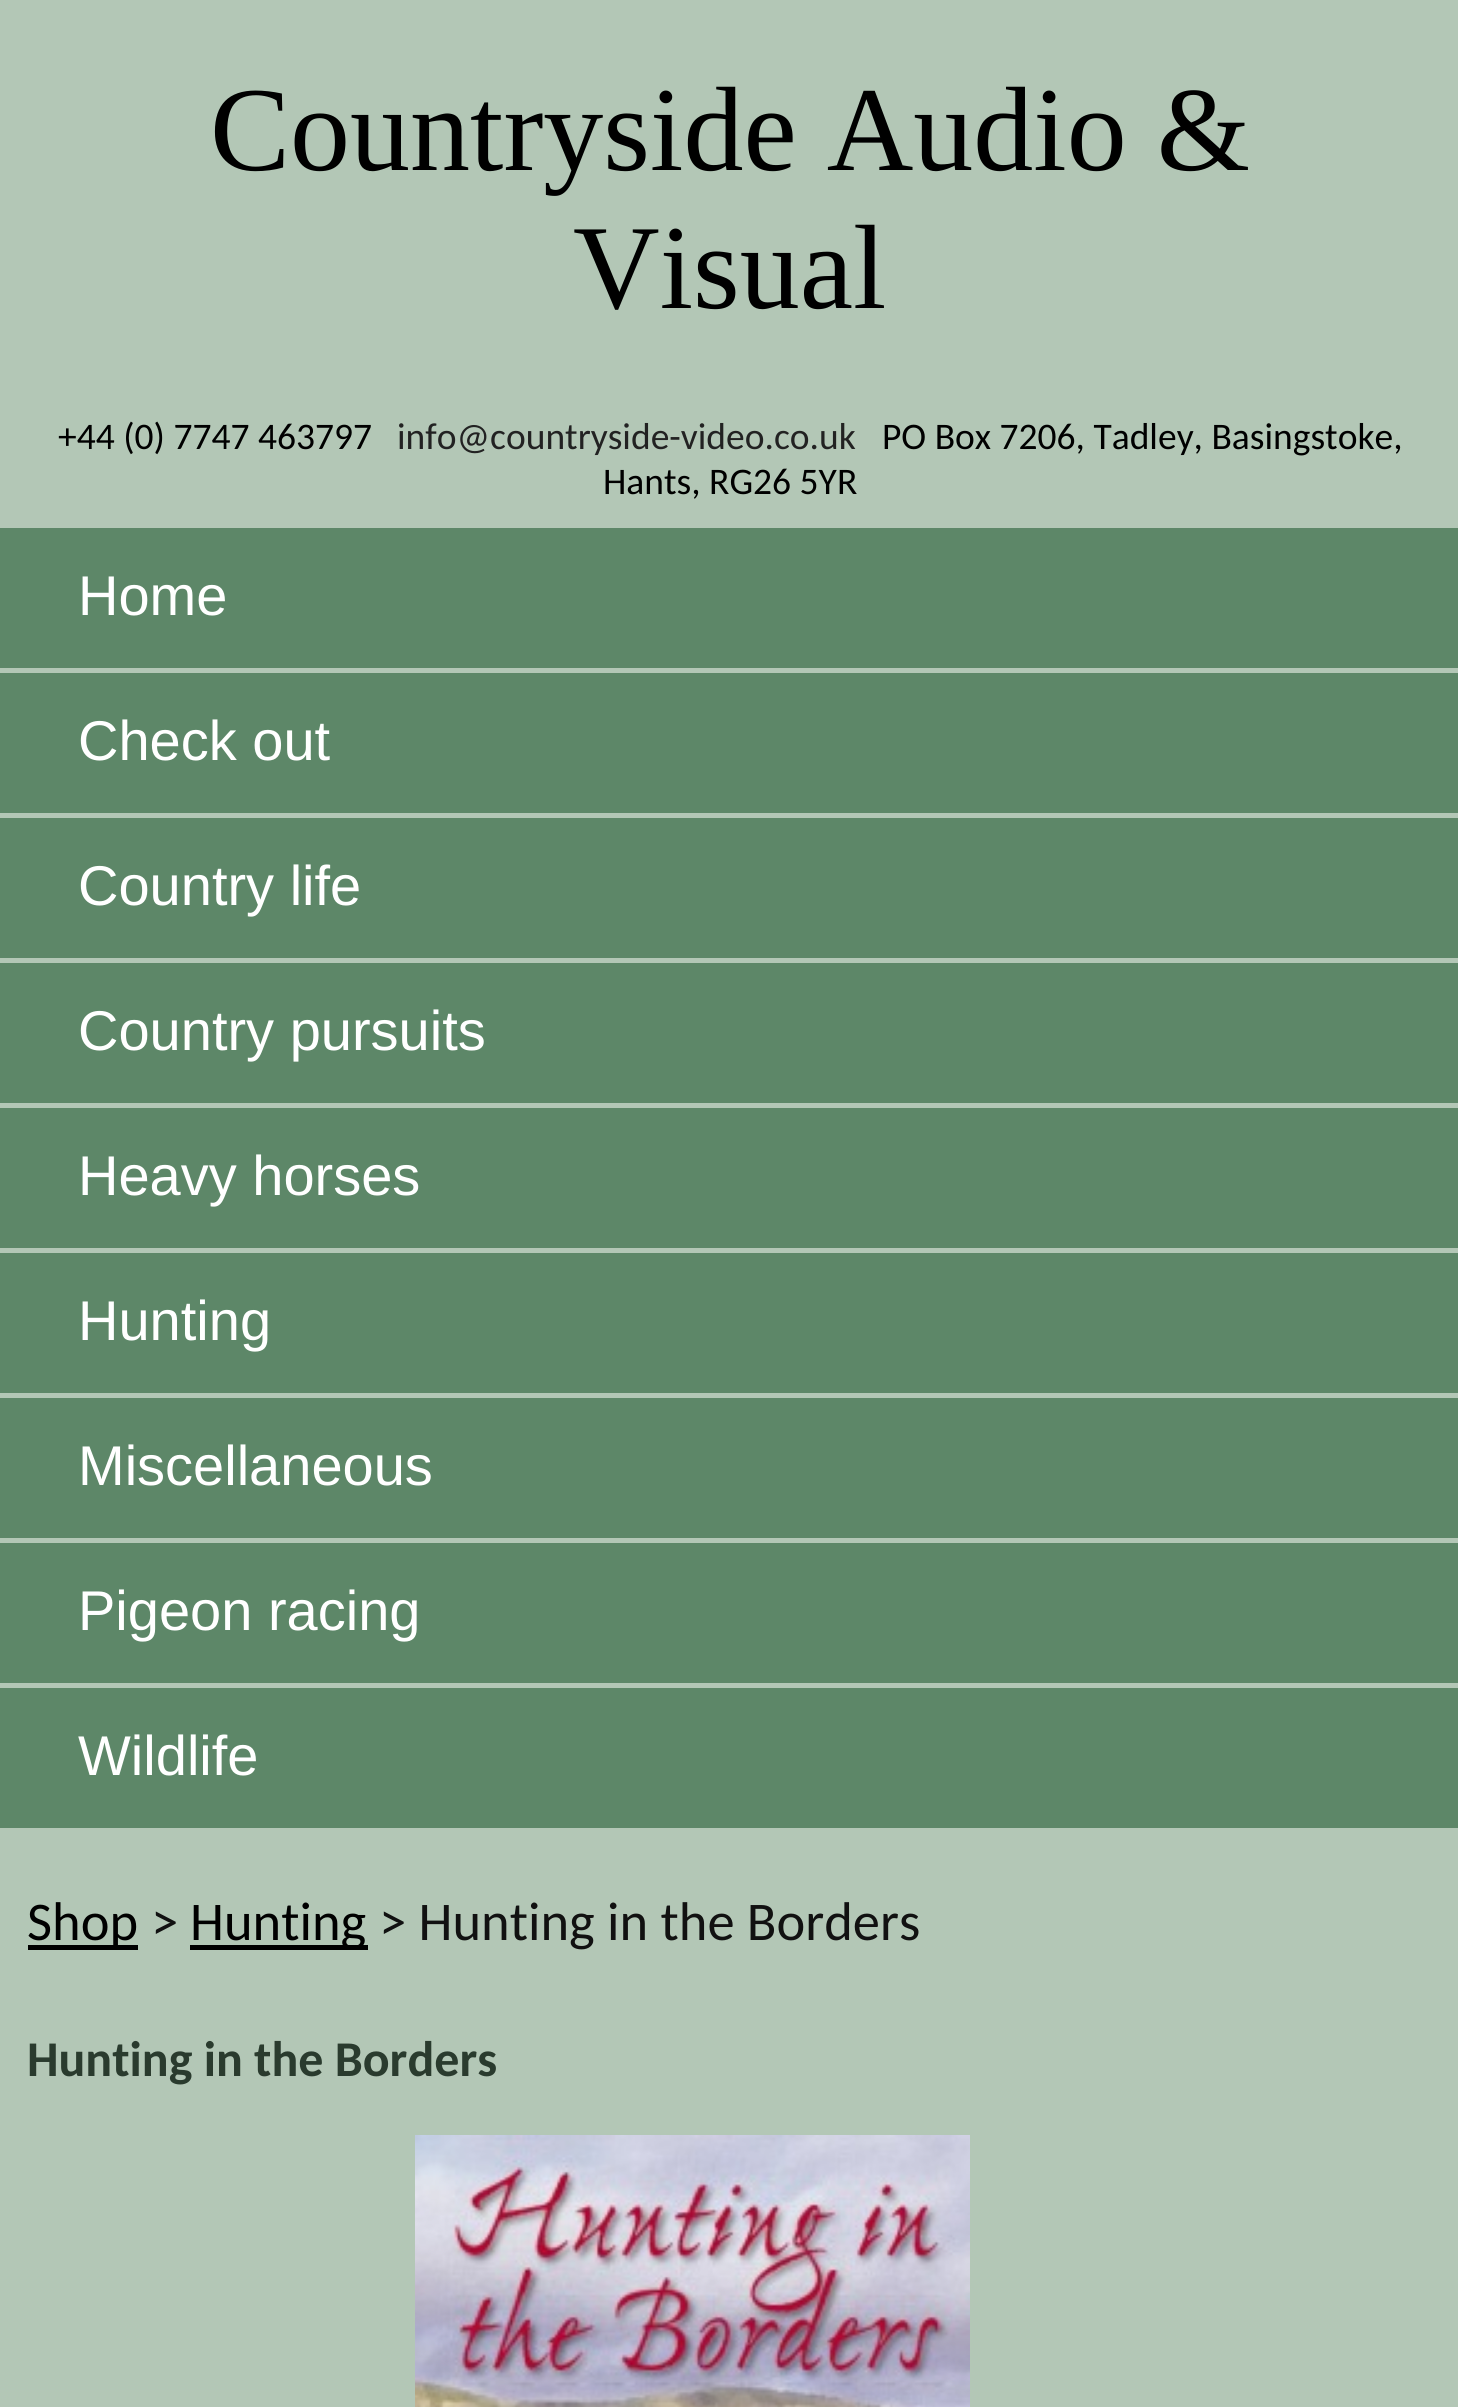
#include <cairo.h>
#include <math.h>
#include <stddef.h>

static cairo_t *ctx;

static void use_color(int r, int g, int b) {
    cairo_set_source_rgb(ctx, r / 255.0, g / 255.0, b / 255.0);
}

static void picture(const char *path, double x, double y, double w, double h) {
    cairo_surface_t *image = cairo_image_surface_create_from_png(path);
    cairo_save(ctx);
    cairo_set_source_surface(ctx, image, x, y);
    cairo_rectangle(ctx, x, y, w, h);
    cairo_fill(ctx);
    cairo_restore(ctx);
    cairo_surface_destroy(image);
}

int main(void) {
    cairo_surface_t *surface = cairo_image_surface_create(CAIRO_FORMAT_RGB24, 1458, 2407);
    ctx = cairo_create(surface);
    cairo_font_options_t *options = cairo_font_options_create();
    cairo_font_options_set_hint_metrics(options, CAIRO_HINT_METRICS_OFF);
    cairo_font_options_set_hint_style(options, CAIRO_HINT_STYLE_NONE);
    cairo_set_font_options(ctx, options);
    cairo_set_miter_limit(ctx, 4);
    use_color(179, 199, 182);
    cairo_paint(ctx);
    cairo_select_font_face(ctx, "Liberation Serif", CAIRO_FONT_SLANT_NORMAL, CAIRO_FONT_WEIGHT_NORMAL);
    cairo_set_font_size(ctx, 120);
    use_color(0, 0, 0);
    cairo_move_to(ctx, 210, 170);
    cairo_show_text(ctx, "Countryside Audio &");
    cairo_move_to(ctx, 573, 308);
    cairo_show_text(ctx, "Visual");
    cairo_select_font_face(ctx, "Carlito", CAIRO_FONT_SLANT_NORMAL, CAIRO_FONT_WEIGHT_NORMAL);
    cairo_set_font_size(ctx, 37.5);
    cairo_move_to(ctx, 58, 449);
    cairo_show_text(ctx, "+44 (0) 7747 463797");
    use_color(34, 34, 34);
    cairo_move_to(ctx, 397, 449);
    cairo_show_text(ctx, "info@countryside-video.co.uk");
    use_color(0, 0, 0);
    cairo_move_to(ctx, 882, 449);
    cairo_show_text(ctx, "PO Box 7206, Tadley, Basingstoke,");
    cairo_move_to(ctx, 603, 494);
    cairo_show_text(ctx, "Hants, RG26 5YR");
    use_color(93, 135, 104);
    cairo_rectangle(ctx, 0, 528, 1458, 140);
    cairo_fill(ctx);
    cairo_select_font_face(ctx, "Liberation Sans", CAIRO_FONT_SLANT_NORMAL, CAIRO_FONT_WEIGHT_NORMAL);
    cairo_set_font_size(ctx, 56);
    use_color(255, 255, 255);
    cairo_move_to(ctx, 78, 615);
    cairo_show_text(ctx, "Home");
    use_color(93, 135, 104);
    cairo_rectangle(ctx, 0, 673, 1458, 140);
    cairo_fill(ctx);
    use_color(255, 255, 255);
    cairo_move_to(ctx, 78, 760);
    cairo_show_text(ctx, "Check out");
    use_color(93, 135, 104);
    cairo_rectangle(ctx, 0, 818, 1458, 140);
    cairo_fill(ctx);
    use_color(255, 255, 255);
    cairo_move_to(ctx, 78, 905);
    cairo_show_text(ctx, "Country life");
    use_color(93, 135, 104);
    cairo_rectangle(ctx, 0, 963, 1458, 140);
    cairo_fill(ctx);
    use_color(255, 255, 255);
    cairo_move_to(ctx, 78, 1050);
    cairo_show_text(ctx, "Country pursuits");
    use_color(93, 135, 104);
    cairo_rectangle(ctx, 0, 1108, 1458, 140);
    cairo_fill(ctx);
    use_color(255, 255, 255);
    cairo_move_to(ctx, 78, 1195);
    cairo_show_text(ctx, "Heavy horses");
    use_color(93, 135, 104);
    cairo_rectangle(ctx, 0, 1253, 1458, 140);
    cairo_fill(ctx);
    use_color(255, 255, 255);
    cairo_move_to(ctx, 78, 1340);
    cairo_show_text(ctx, "Hunting");
    use_color(93, 135, 104);
    cairo_rectangle(ctx, 0, 1398, 1458, 140);
    cairo_fill(ctx);
    use_color(255, 255, 255);
    cairo_move_to(ctx, 78, 1485);
    cairo_show_text(ctx, "Miscellaneous");
    use_color(93, 135, 104);
    cairo_rectangle(ctx, 0, 1543, 1458, 140);
    cairo_fill(ctx);
    use_color(255, 255, 255);
    cairo_move_to(ctx, 78, 1630);
    cairo_show_text(ctx, "Pigeon racing");
    use_color(93, 135, 104);
    cairo_rectangle(ctx, 0, 1688, 1458, 140);
    cairo_fill(ctx);
    use_color(255, 255, 255);
    cairo_move_to(ctx, 78, 1775);
    cairo_show_text(ctx, "Wildlife");
    use_color(0, 0, 0);
    cairo_rectangle(ctx, 28, 1945, 110, 5);
    cairo_fill(ctx);
    cairo_select_font_face(ctx, "Carlito", CAIRO_FONT_SLANT_NORMAL, CAIRO_FONT_WEIGHT_NORMAL);
    cairo_set_font_size(ctx, 54.5);
    cairo_move_to(ctx, 27, 1940);
    cairo_show_text(ctx, "Shop");
    use_color(17, 17, 17);
    cairo_move_to(ctx, 151, 1940);
    cairo_show_text(ctx, ">");
    use_color(0, 0, 0);
    cairo_rectangle(ctx, 190, 1945, 178, 5);
    cairo_fill(ctx);
    cairo_move_to(ctx, 190, 1940);
    cairo_show_text(ctx, "Hunting");
    use_color(17, 17, 17);
    cairo_move_to(ctx, 379, 1940);
    cairo_show_text(ctx, "> Hunting in the Borders");
    cairo_select_font_face(ctx, "Carlito", CAIRO_FONT_SLANT_NORMAL, CAIRO_FONT_WEIGHT_BOLD);
    cairo_set_font_size(ctx, 50);
    use_color(42, 59, 46);
    cairo_move_to(ctx, 27, 2076);
    cairo_show_text(ctx, "Hunting in the Borders");
    picture("img1.png", 415, 2135, 555, 272);
    cairo_surface_write_to_png(surface, "result.png");
    cairo_font_options_destroy(options);
    cairo_destroy(ctx);
    cairo_surface_destroy(surface);
    return 0;
}
